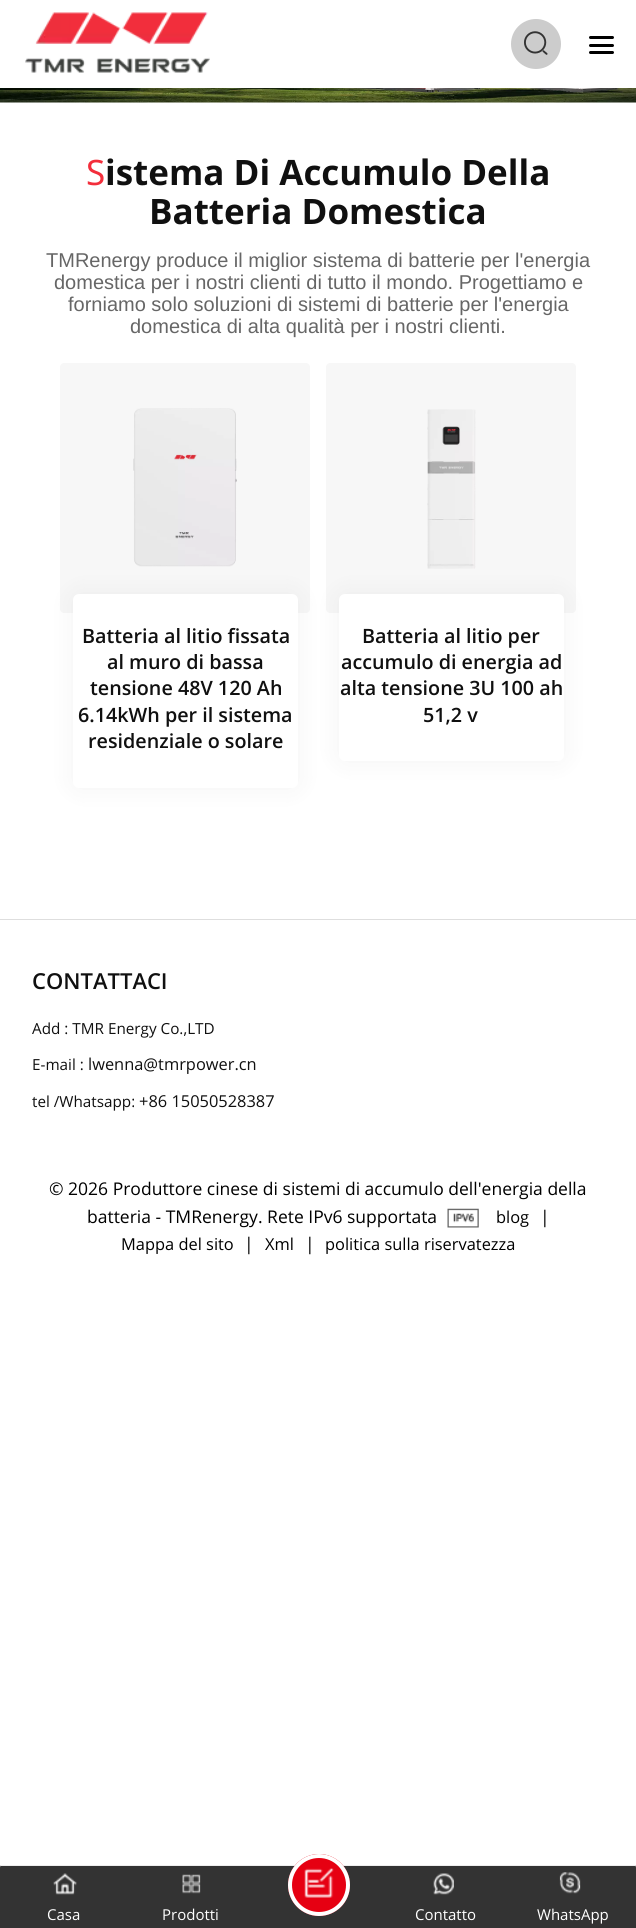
#include <cairo.h>
#include <math.h>
#include <stddef.h>

static cairo_t *ctx;

static void use_color(int r, int g, int b) {
    cairo_set_source_rgb(ctx, r / 255.0, g / 255.0, b / 255.0);
}

static void round_rect(double x, double y, double w, double h, double r) {
    cairo_new_sub_path(ctx);
    cairo_arc(ctx, x + w - r, y + h - r, r, 0, M_PI / 2);
    cairo_arc(ctx, x + r, y + h - r, r, M_PI / 2, M_PI);
    cairo_arc(ctx, x + r, y + r, r, M_PI, 1.5 * M_PI);
    cairo_arc(ctx, x + w - r, y + r, r, 1.5 * M_PI, 2 * M_PI);
    cairo_close_path(ctx);
}

static void shadow(double x, double y, double w, double h, double r, double blur, double alpha) {
    cairo_push_group_with_content(ctx, CAIRO_CONTENT_ALPHA);
    cairo_set_operator(ctx, CAIRO_OPERATOR_SOURCE);
    for (int i = 15; i >= -15 && fmin(w, h) + blur * i / 3 > 0; i -= 2) {
        double e = blur * i / 6;
        cairo_set_source_rgba(ctx, 0, 0, 0, alpha * erfc((i - 1) / 8.5) / 2);
        round_rect(x - e, y - e, w + 2 * e, h + 2 * e, fmax(0, fmin(r + e + blur * .6, fmin(w, h) / 2 + e)));
        cairo_fill(ctx);
    }
    cairo_pattern_t *soft = cairo_pop_group(ctx);
    cairo_mask(ctx, soft);
    cairo_pattern_destroy(soft);
}

static void picture(const char *path, double x, double y, double w, double h) {
    cairo_surface_t *image = cairo_image_surface_create_from_png(path);
    cairo_save(ctx);
    cairo_set_source_surface(ctx, image, x, y);
    cairo_rectangle(ctx, x, y, w, h);
    cairo_fill(ctx);
    cairo_restore(ctx);
    cairo_surface_destroy(image);
}

int main(void) {
    cairo_surface_t *surface = cairo_image_surface_create(CAIRO_FORMAT_RGB24, 636, 1928);
    ctx = cairo_create(surface);
    cairo_font_options_t *options = cairo_font_options_create();
    cairo_font_options_set_hint_metrics(options, CAIRO_HINT_METRICS_OFF);
    cairo_font_options_set_hint_style(options, CAIRO_HINT_STYLE_NONE);
    cairo_set_font_options(ctx, options);
    cairo_set_miter_limit(ctx, 4);
    use_color(255, 255, 255);
    cairo_paint(ctx);
    picture("img1.png", 25, 12, 185, 61);
    use_color(204, 204, 204);
    cairo_arc(ctx, 536, 44, 25, 0, 2 * M_PI);
    cairo_fill(ctx);
    picture("img2.png", 524, 31, 24, 24);
    use_color(0, 0, 0);
    round_rect(589, 44, 25, 3, 1.5);
    cairo_fill(ctx);
    round_rect(589, 36, 25, 3, 1.5);
    cairo_fill(ctx);
    round_rect(589, 51, 25, 3, 1.5);
    cairo_fill(ctx);
    picture("img3.png", 0, 88, 636, 15);
    cairo_select_font_face(ctx, "Noto Sans", CAIRO_FONT_SLANT_NORMAL, CAIRO_FONT_WEIGHT_NORMAL);
    cairo_set_font_size(ctx, 35);
    use_color(243, 46, 59);
    cairo_move_to(ctx, 86, 185);
    cairo_show_text(ctx, "S");
    cairo_select_font_face(ctx, "Open Sans", CAIRO_FONT_SLANT_NORMAL, CAIRO_FONT_WEIGHT_BOLD);
    use_color(16, 16, 16);
    cairo_move_to(ctx, 105, 185);
    cairo_show_text(ctx, "istema Di Accumulo Della");
    cairo_move_to(ctx, 149, 224);
    cairo_show_text(ctx, "Batteria Domestica");
    cairo_select_font_face(ctx, "Liberation Sans", CAIRO_FONT_SLANT_NORMAL, CAIRO_FONT_WEIGHT_NORMAL);
    cairo_set_font_size(ctx, 20);
    use_color(102, 102, 102);
    cairo_move_to(ctx, 46, 267);
    cairo_show_text(ctx, "TMRenergy produce il miglior sistema di batterie per l'energia");
    cairo_move_to(ctx, 54, 289);
    cairo_show_text(ctx, "domestica per i nostri clienti di tutto il mondo. Progettiamo e");
    cairo_move_to(ctx, 68, 311);
    cairo_show_text(ctx, "forniamo solo soluzioni di sistemi di batterie per l'energia");
    cairo_move_to(ctx, 130, 333);
    cairo_show_text(ctx, "domestica di alta qualità per i nostri clienti.");
    use_color(247, 247, 247);
    round_rect(60, 363, 250, 250, 4);
    cairo_fill(ctx);
    picture("img4.png", 133, 408, 104, 159);
    round_rect(326, 363, 250, 250, 4);
    cairo_fill(ctx);
    use_color(0, 0, 0);
    shadow(73, 594, 225, 194, 6, 12.5, 0.05);
    use_color(255, 255, 255);
    round_rect(73, 594, 225, 194, 6);
    cairo_fill(ctx);
    cairo_select_font_face(ctx, "Open Sans SemiBold", CAIRO_FONT_SLANT_NORMAL, CAIRO_FONT_WEIGHT_NORMAL);
    cairo_set_font_size(ctx, 19.75);
    use_color(16, 16, 16);
    cairo_move_to(ctx, 82, 643);
    cairo_show_text(ctx, "Batteria al litio fissata");
    cairo_move_to(ctx, 107, 669);
    cairo_show_text(ctx, "al muro di bassa");
    cairo_move_to(ctx, 90, 695);
    cairo_show_text(ctx, "tensione 48V 120 Ah");
    cairo_move_to(ctx, 78, 722);
    cairo_show_text(ctx, "6.14kWh per il sistema");
    cairo_move_to(ctx, 88, 748);
    cairo_show_text(ctx, "residenziale o solare");
    picture("img5.png", 427, 409, 49, 160);
    use_color(0, 0, 0);
    shadow(339, 594, 225, 167, 6, 12.5, 0.05);
    use_color(255, 255, 255);
    round_rect(339, 594, 225, 167, 6);
    cairo_fill(ctx);
    use_color(16, 16, 16);
    cairo_move_to(ctx, 362, 643);
    cairo_show_text(ctx, "Batteria al litio per");
    cairo_move_to(ctx, 341, 669);
    cairo_show_text(ctx, "accumulo di energia ad");
    cairo_move_to(ctx, 340, 695);
    cairo_show_text(ctx, "alta tensione 3U 100 ah");
    cairo_move_to(ctx, 423, 722);
    cairo_show_text(ctx, "51,2 v");
    use_color(222, 222, 222);
    cairo_rectangle(ctx, 0, 919, 636, 1);
    cairo_fill(ctx);
    cairo_set_font_size(ctx, 22);
    use_color(16, 16, 16);
    cairo_move_to(ctx, 32, 989);
    cairo_show_text(ctx, "CONTATTACI");
    cairo_select_font_face(ctx, "Open Sans", CAIRO_FONT_SLANT_NORMAL, CAIRO_FONT_WEIGHT_NORMAL);
    cairo_set_font_size(ctx, 15.25);
    cairo_move_to(ctx, 32, 1034);
    cairo_show_text(ctx, "Add : TMR Energy Co.,LTD");
    cairo_move_to(ctx, 32, 1070);
    cairo_show_text(ctx, "E-mail :");
    cairo_set_font_size(ctx, 16.4);
    cairo_move_to(ctx, 88, 1070);
    cairo_show_text(ctx, "lwenna@tmrpower.cn");
    cairo_set_font_size(ctx, 15.25);
    cairo_move_to(ctx, 32, 1107);
    cairo_show_text(ctx, "tel /Whatsapp:");
    cairo_set_font_size(ctx, 16.4);
    cairo_move_to(ctx, 139, 1107);
    cairo_show_text(ctx, "+86 15050528387");
    cairo_set_font_size(ctx, 17.5);
    use_color(0, 0, 0);
    cairo_move_to(ctx, 49, 1195);
    cairo_show_text(ctx, "© 2026 Produttore cinese di sistemi di accumulo dell'energia della");
    cairo_move_to(ctx, 87, 1223);
    cairo_show_text(ctx, "batteria - TMRenergy. Rete IPv6 supportata");
    picture("img6.png", 447, 1208, 32, 20);
    cairo_set_font_size(ctx, 16.4);
    cairo_move_to(ctx, 496, 1223);
    cairo_show_text(ctx, "blog");
    cairo_set_font_size(ctx, 17.5);
    cairo_move_to(ctx, 540, 1223);
    cairo_show_text(ctx, "|");
    cairo_set_font_size(ctx, 16.4);
    cairo_move_to(ctx, 121, 1250);
    cairo_show_text(ctx, "Mappa del sito");
    cairo_set_font_size(ctx, 17.5);
    cairo_move_to(ctx, 244, 1250);
    cairo_show_text(ctx, "|");
    cairo_set_font_size(ctx, 16.4);
    cairo_move_to(ctx, 265, 1250);
    cairo_show_text(ctx, "Xml");
    cairo_set_font_size(ctx, 17.5);
    cairo_move_to(ctx, 305, 1250);
    cairo_show_text(ctx, "|");
    cairo_set_font_size(ctx, 16.4);
    cairo_move_to(ctx, 325, 1250);
    cairo_show_text(ctx, "politica sulla riservatezza");
    use_color(51, 51, 51);
    cairo_new_path(ctx);
    cairo_move_to(ctx, 2.5, 1865);
    cairo_line_to(ctx, 633.5, 1865);
    cairo_curve_to(ctx, 635, 1865, 636, 1866, 636, 1867.5);
    cairo_line_to(ctx, 636, 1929);
    cairo_line_to(ctx, 0, 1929);
    cairo_line_to(ctx, 0, 1867.5);
    cairo_curve_to(ctx, 0, 1866, 1, 1865, 2.5, 1865);
    cairo_close_path(ctx);
    cairo_fill(ctx);
    use_color(238, 238, 238);
    cairo_rectangle(ctx, 1, 1865, 634, 1);
    cairo_fill(ctx);
    use_color(230, 0, 18);
    cairo_arc(ctx, 319, 1885, 31, 0, 2 * M_PI);
    cairo_fill(ctx);
    picture("img7.png", 304, 1868, 30, 30);
    cairo_arc(ctx, 319, 1885, 29, 0, 2 * M_PI);
    use_color(255, 255, 255);
    cairo_set_line_width(ctx, 4);
    cairo_stroke(ctx);
    picture("img8.png", 53, 1873, 24, 22);
    cairo_set_font_size(ctx, 15);
    cairo_move_to(ctx, 47, 1920);
    cairo_show_text(ctx, "Casa");
    picture("img9.png", 182, 1874, 19, 20);
    cairo_move_to(ctx, 162, 1920);
    cairo_show_text(ctx, "Prodotti");
    picture("img10.png", 433, 1873, 21, 22);
    cairo_move_to(ctx, 415, 1920);
    cairo_show_text(ctx, "Contatto");
    picture("img11.png", 559, 1872, 22, 22);
    cairo_move_to(ctx, 537, 1920);
    cairo_show_text(ctx, "WhatsApp");
    cairo_surface_write_to_png(surface, "result.png");
    cairo_font_options_destroy(options);
    cairo_destroy(ctx);
    cairo_surface_destroy(surface);
    return 0;
}
